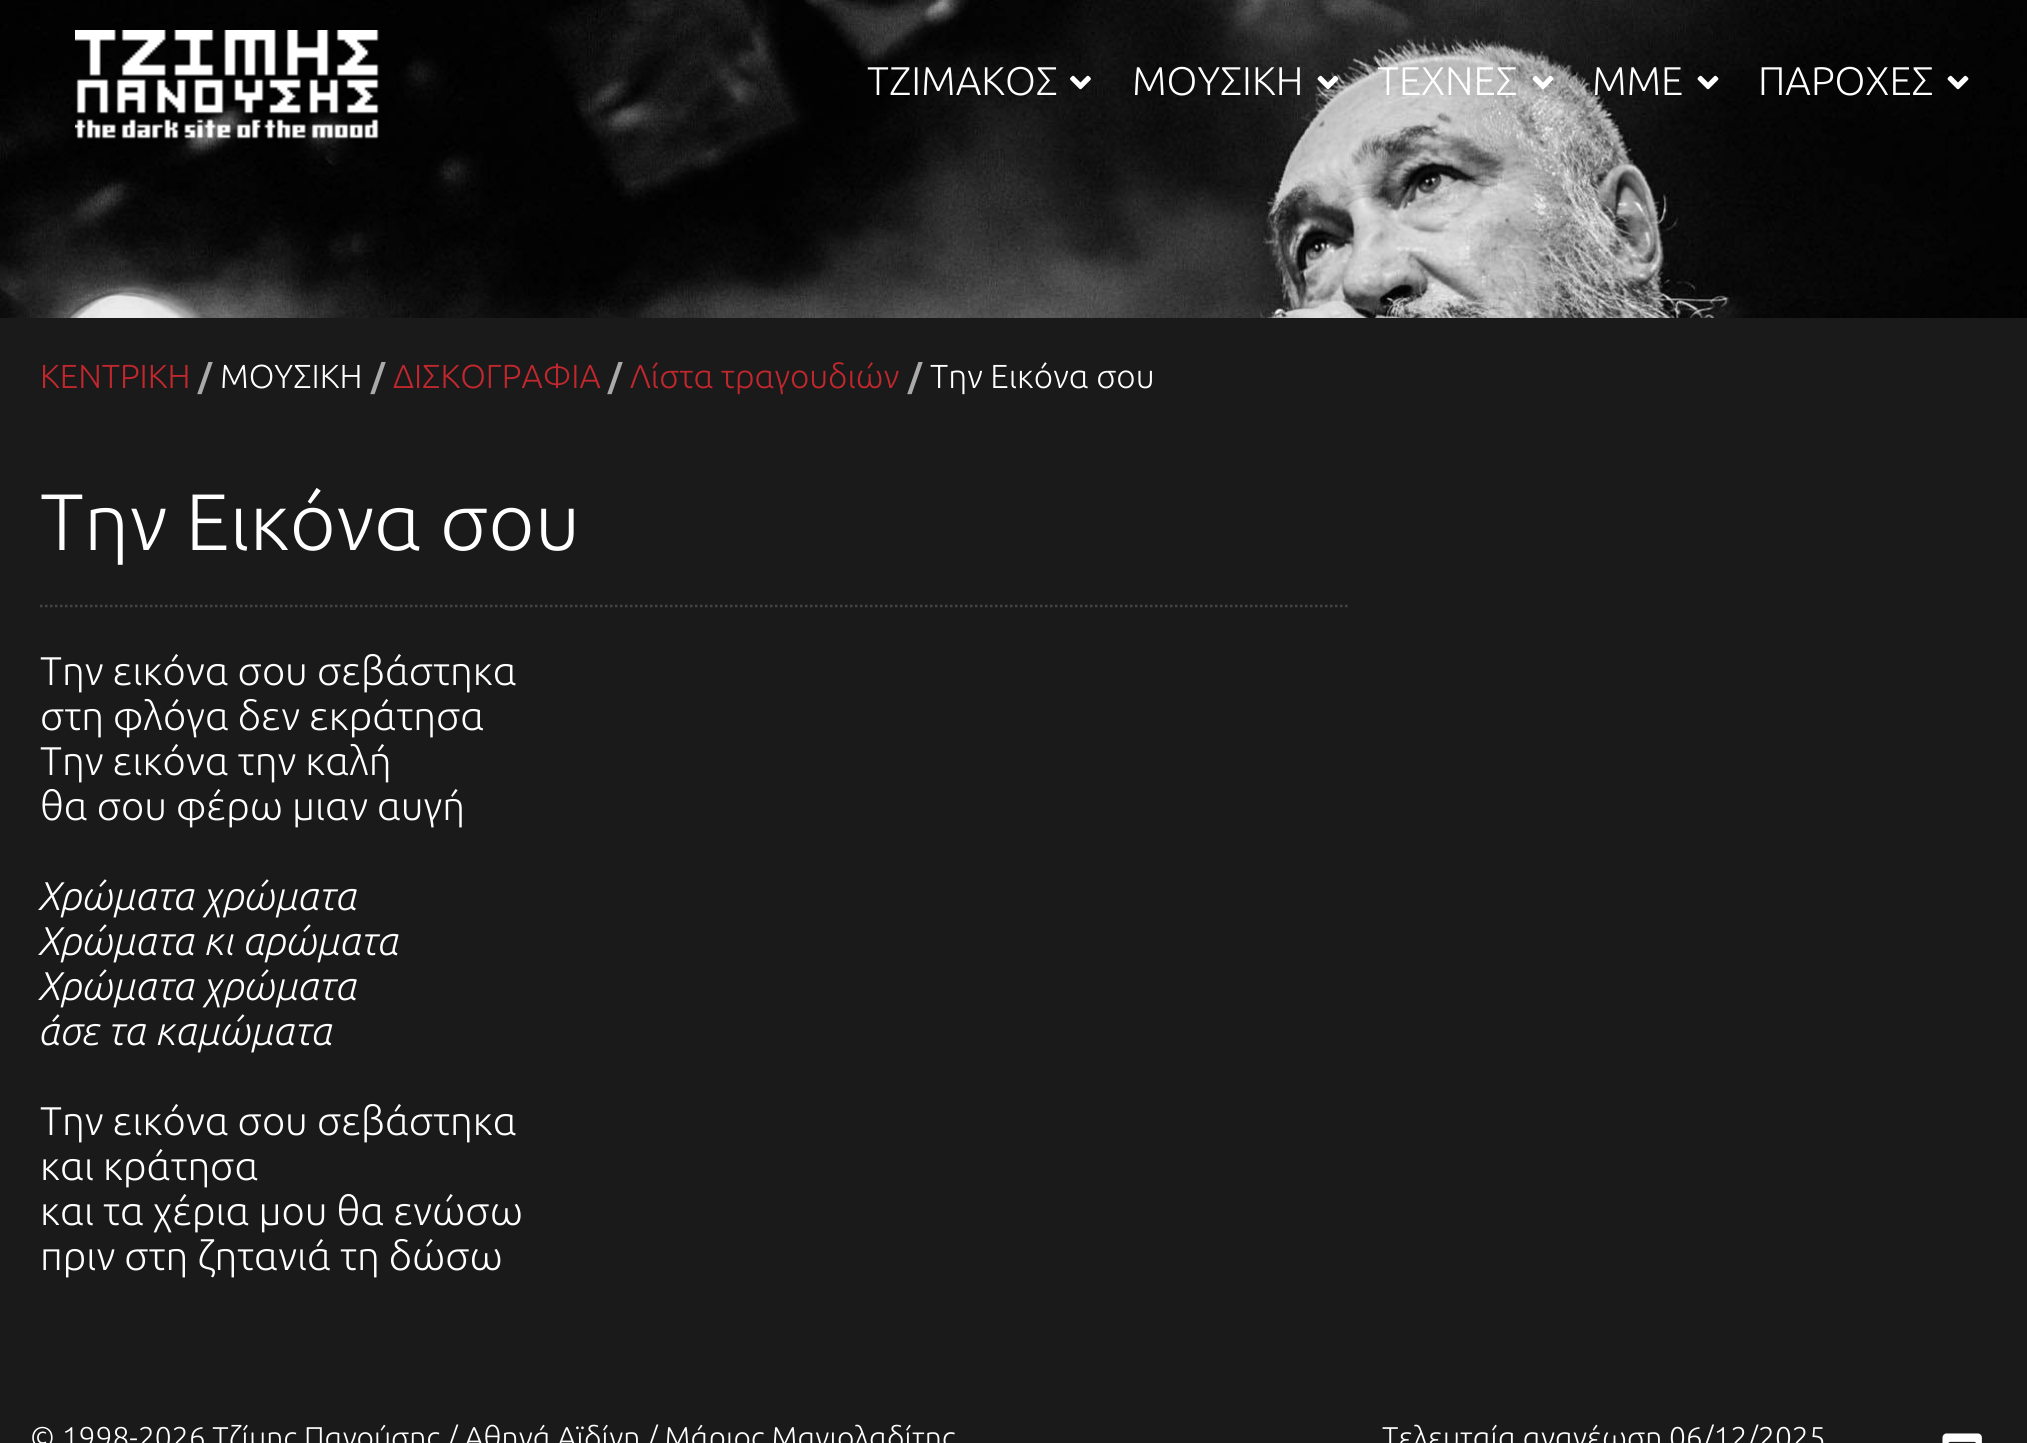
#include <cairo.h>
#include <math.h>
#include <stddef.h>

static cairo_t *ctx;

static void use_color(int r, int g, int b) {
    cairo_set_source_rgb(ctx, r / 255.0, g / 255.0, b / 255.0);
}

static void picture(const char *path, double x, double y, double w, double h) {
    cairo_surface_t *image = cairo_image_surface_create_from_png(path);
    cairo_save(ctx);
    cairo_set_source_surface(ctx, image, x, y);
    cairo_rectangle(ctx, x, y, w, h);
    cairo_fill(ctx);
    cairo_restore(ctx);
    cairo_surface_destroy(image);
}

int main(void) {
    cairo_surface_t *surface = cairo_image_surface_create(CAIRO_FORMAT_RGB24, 2027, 1443);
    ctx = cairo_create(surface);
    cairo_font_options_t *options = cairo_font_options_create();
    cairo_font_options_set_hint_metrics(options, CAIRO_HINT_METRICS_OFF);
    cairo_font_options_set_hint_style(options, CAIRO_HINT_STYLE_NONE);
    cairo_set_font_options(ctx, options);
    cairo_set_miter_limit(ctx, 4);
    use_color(26, 26, 26);
    cairo_paint(ctx);
    picture("img1.png", 0, 0, 2027, 318);
    picture("img2.png", 75, 30, 304, 109);
    cairo_select_font_face(ctx, "Ubuntu Light", CAIRO_FONT_SLANT_NORMAL, CAIRO_FONT_WEIGHT_NORMAL);
    cairo_set_font_size(ctx, 40);
    use_color(255, 255, 255);
    cairo_move_to(ctx, 867, 95);
    cairo_show_text(ctx, "ΤΖΙΜΑΚΟΣ");
    picture("img3.png", 1070, 75, 21, 15);
    cairo_move_to(ctx, 1132, 95);
    cairo_show_text(ctx, "ΜΟΥΣΙΚΗ");
    picture("img4.png", 1317, 75, 22, 15);
    cairo_move_to(ctx, 1377, 95);
    cairo_show_text(ctx, "ΤΕΧΝΕΣ");
    picture("img5.png", 1532, 75, 22, 15);
    cairo_move_to(ctx, 1592, 95);
    cairo_show_text(ctx, "ΜΜΕ");
    picture("img6.png", 1697, 75, 22, 15);
    cairo_move_to(ctx, 1758, 95);
    cairo_show_text(ctx, "ΠΑΡΟΧΕΣ");
    picture("img7.png", 1947, 75, 22, 15);
    cairo_set_font_size(ctx, 33.25);
    use_color(193, 39, 45);
    cairo_move_to(ctx, 40, 388);
    cairo_show_text(ctx, "ΚΕΝΤΡΙΚΗ");
    cairo_select_font_face(ctx, "Ubuntu", CAIRO_FONT_SLANT_NORMAL, CAIRO_FONT_WEIGHT_BOLD);
    use_color(170, 170, 170);
    cairo_move_to(ctx, 198, 388);
    cairo_show_text(ctx, "/");
    cairo_select_font_face(ctx, "Ubuntu Light", CAIRO_FONT_SLANT_NORMAL, CAIRO_FONT_WEIGHT_NORMAL);
    use_color(255, 255, 255);
    cairo_move_to(ctx, 220, 388);
    cairo_show_text(ctx, "ΜΟΥΣΙΚΗ");
    cairo_select_font_face(ctx, "Ubuntu", CAIRO_FONT_SLANT_NORMAL, CAIRO_FONT_WEIGHT_BOLD);
    use_color(170, 170, 170);
    cairo_move_to(ctx, 371, 388);
    cairo_show_text(ctx, "/");
    cairo_select_font_face(ctx, "Ubuntu Light", CAIRO_FONT_SLANT_NORMAL, CAIRO_FONT_WEIGHT_NORMAL);
    use_color(193, 39, 45);
    cairo_move_to(ctx, 393, 388);
    cairo_show_text(ctx, "ΔΙΣΚΟΓΡΑΦΙΑ");
    cairo_select_font_face(ctx, "Ubuntu", CAIRO_FONT_SLANT_NORMAL, CAIRO_FONT_WEIGHT_BOLD);
    use_color(170, 170, 170);
    cairo_move_to(ctx, 608, 388);
    cairo_show_text(ctx, "/");
    cairo_select_font_face(ctx, "Ubuntu Light", CAIRO_FONT_SLANT_NORMAL, CAIRO_FONT_WEIGHT_NORMAL);
    use_color(193, 39, 45);
    cairo_move_to(ctx, 630, 388);
    cairo_show_text(ctx, "Λίστα τραγουδιών");
    cairo_select_font_face(ctx, "Ubuntu", CAIRO_FONT_SLANT_NORMAL, CAIRO_FONT_WEIGHT_BOLD);
    use_color(170, 170, 170);
    cairo_move_to(ctx, 908, 388);
    cairo_show_text(ctx, "/");
    cairo_select_font_face(ctx, "Ubuntu Light", CAIRO_FONT_SLANT_NORMAL, CAIRO_FONT_WEIGHT_NORMAL);
    use_color(255, 255, 255);
    cairo_move_to(ctx, 930, 388);
    cairo_show_text(ctx, "Την Εικόνα σου");
    cairo_new_path(ctx);
    cairo_move_to(ctx, 40, 606);
    cairo_line_to(ctx, 1347.5, 606);
    use_color(68, 68, 68);
    cairo_set_line_width(ctx, 2.5);
    cairo_set_dash(ctx, (double[]){2.5, 2.5}, 2, 0);
    cairo_stroke(ctx);
    cairo_set_font_size(ctx, 80);
    use_color(255, 255, 255);
    cairo_move_to(ctx, 40, 550);
    cairo_show_text(ctx, "Την Εικόνα σου");
    cairo_set_font_size(ctx, 40);
    cairo_move_to(ctx, 40, 685);
    cairo_show_text(ctx, "Την εικόνα σου σεβάστηκα");
    cairo_move_to(ctx, 40, 730);
    cairo_show_text(ctx, "στη φλόγα δεν εκράτησα");
    cairo_move_to(ctx, 40, 775);
    cairo_show_text(ctx, "Την εικόνα την καλή");
    cairo_move_to(ctx, 40, 820);
    cairo_show_text(ctx, "θα σου φέρω μιαν αυγή");
    cairo_select_font_face(ctx, "Ubuntu Light", CAIRO_FONT_SLANT_ITALIC, CAIRO_FONT_WEIGHT_NORMAL);
    cairo_move_to(ctx, 40, 910);
    cairo_show_text(ctx, "Χρώματα χρώματα");
    cairo_move_to(ctx, 40, 955);
    cairo_show_text(ctx, "Χρώματα κι αρώματα");
    cairo_move_to(ctx, 40, 1000);
    cairo_show_text(ctx, "Χρώματα χρώματα");
    cairo_move_to(ctx, 40, 1045);
    cairo_show_text(ctx, "άσε τα καμώματα");
    cairo_select_font_face(ctx, "Ubuntu Light", CAIRO_FONT_SLANT_NORMAL, CAIRO_FONT_WEIGHT_NORMAL);
    cairo_move_to(ctx, 40, 1135);
    cairo_show_text(ctx, "Την εικόνα σου σεβάστηκα");
    cairo_move_to(ctx, 40, 1180);
    cairo_show_text(ctx, "και κράτησα");
    cairo_move_to(ctx, 40, 1225);
    cairo_show_text(ctx, "και τα χέρια μου θα ενώσω");
    cairo_move_to(ctx, 40, 1270);
    cairo_show_text(ctx, "πριν στη ζητανιά τη δώσω");
    cairo_set_font_size(ctx, 30);
    cairo_move_to(ctx, 30, 1448);
    cairo_show_text(ctx, "© 1998-2026 Τζίμης Πανούσης / Αθηνά Αϊδίνη / Μάριος Μαγιολαδίτης");
    cairo_move_to(ctx, 1382, 1448);
    cairo_show_text(ctx, "Τελευταία ανανέωση 06/12/2025");
    picture("img8.png", 1942, 1433, 40, 10);
    cairo_surface_write_to_png(surface, "result.png");
    cairo_font_options_destroy(options);
    cairo_destroy(ctx);
    cairo_surface_destroy(surface);
    return 0;
}
